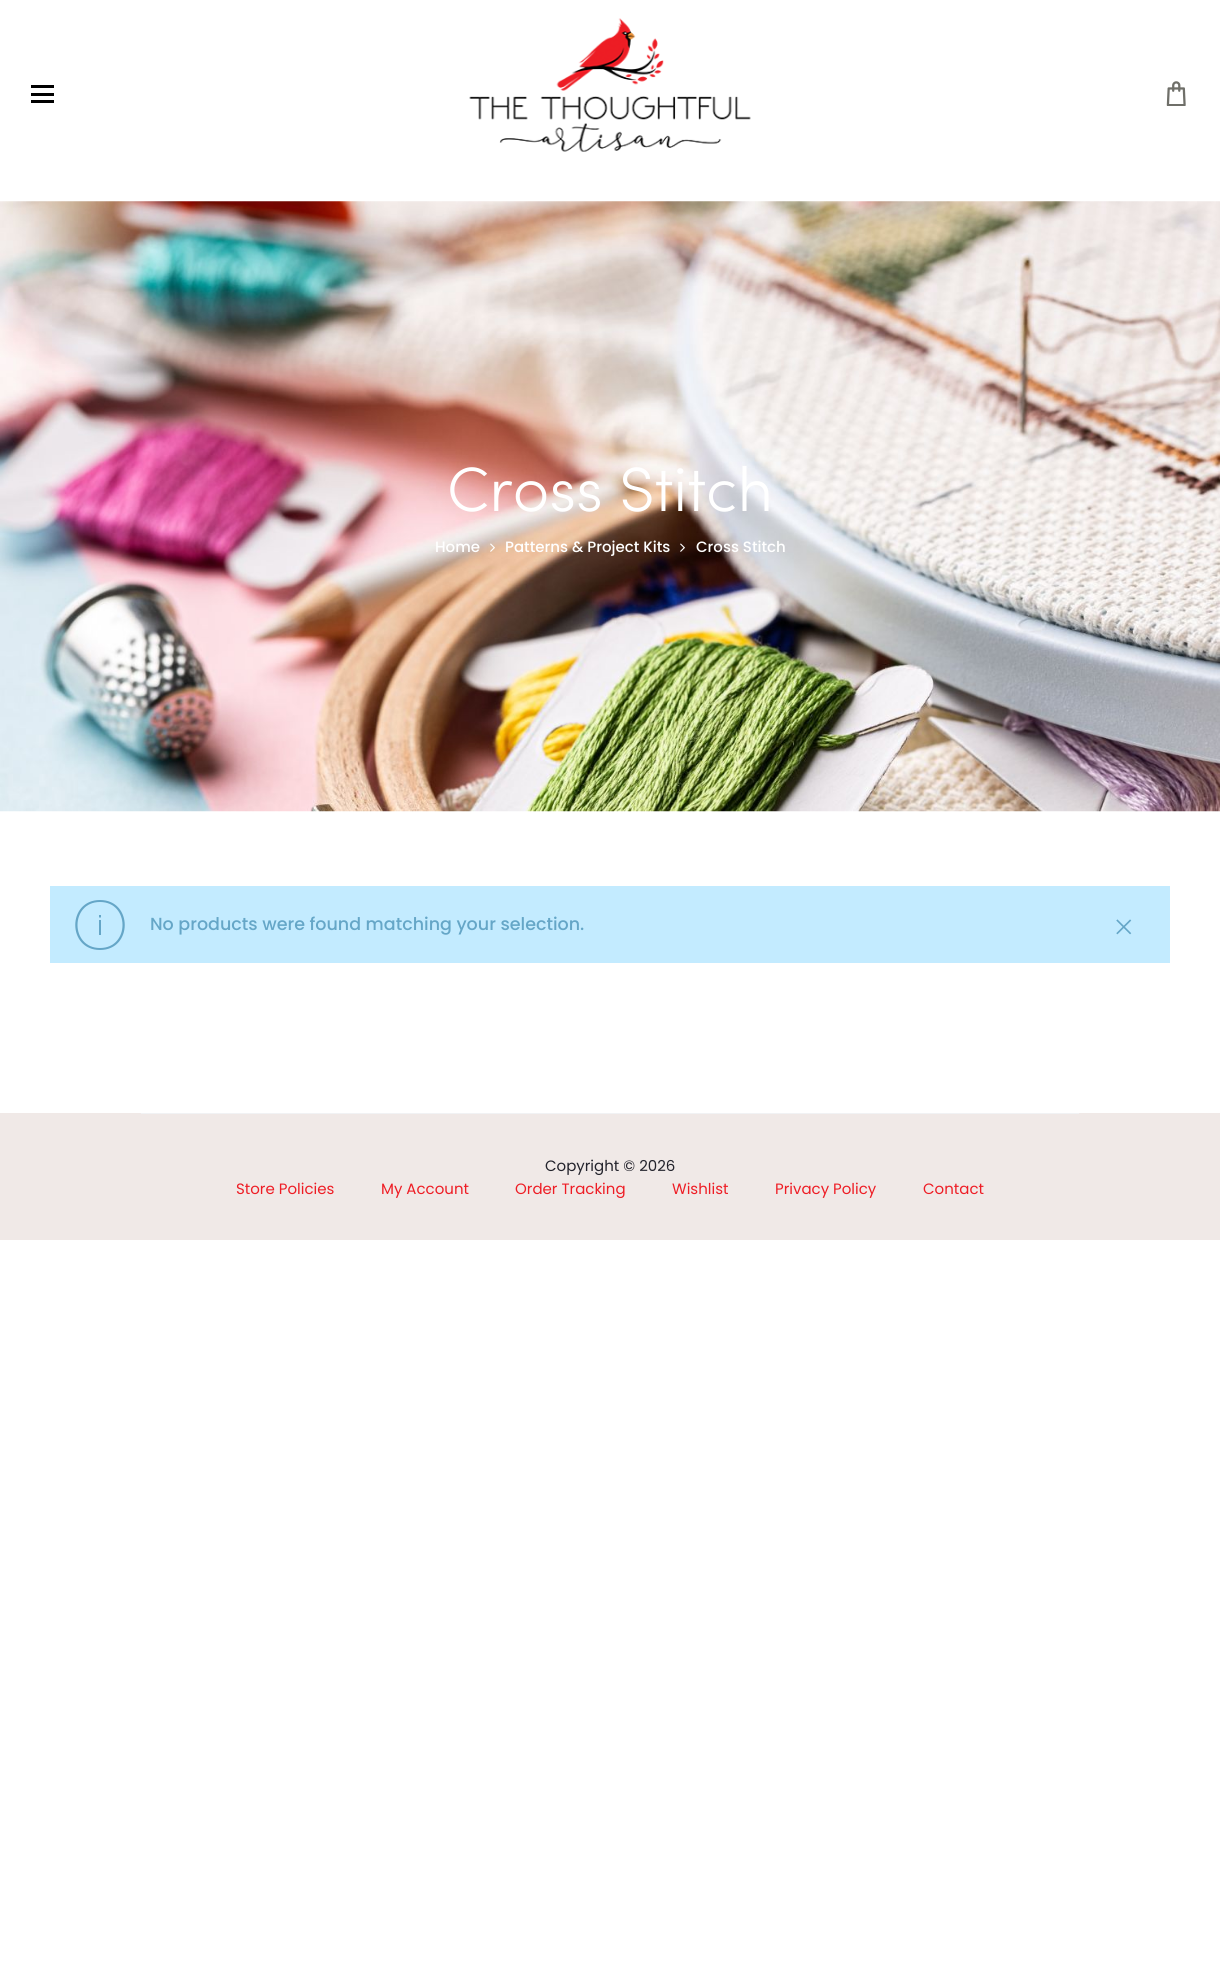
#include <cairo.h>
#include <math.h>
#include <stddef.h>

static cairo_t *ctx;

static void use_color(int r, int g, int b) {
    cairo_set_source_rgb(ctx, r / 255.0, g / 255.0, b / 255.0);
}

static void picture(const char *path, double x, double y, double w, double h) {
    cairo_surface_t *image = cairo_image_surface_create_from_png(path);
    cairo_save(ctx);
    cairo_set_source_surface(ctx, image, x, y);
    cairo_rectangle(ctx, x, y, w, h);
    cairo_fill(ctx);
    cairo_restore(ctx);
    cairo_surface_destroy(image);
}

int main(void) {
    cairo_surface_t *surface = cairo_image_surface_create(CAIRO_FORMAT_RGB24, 1220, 1969);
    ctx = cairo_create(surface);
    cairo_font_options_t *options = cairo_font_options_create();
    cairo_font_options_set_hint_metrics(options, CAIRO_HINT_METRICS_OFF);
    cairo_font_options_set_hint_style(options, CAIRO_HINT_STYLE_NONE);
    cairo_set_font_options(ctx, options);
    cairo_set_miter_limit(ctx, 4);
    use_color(255, 255, 255);
    cairo_paint(ctx);
    use_color(0, 0, 0);
    cairo_rectangle(ctx, 31, 93, 23, 3);
    cairo_fill(ctx);
    cairo_rectangle(ctx, 31, 85, 23, 3);
    cairo_fill(ctx);
    cairo_rectangle(ctx, 31, 100, 23, 3);
    cairo_fill(ctx);
    picture("img1.png", 469, 18, 282, 134);
    picture("img2.png", 1166, 81, 20, 25);
    picture("img3.png", 0, 201, 1220, 611);
    cairo_select_font_face(ctx, "Sofia Light", CAIRO_FONT_SLANT_NORMAL, CAIRO_FONT_WEIGHT_NORMAL);
    cairo_set_font_size(ctx, 62.5);
    use_color(255, 255, 255);
    cairo_move_to(ctx, 447, 511);
    cairo_show_text(ctx, "Cross Stitch");
    cairo_select_font_face(ctx, "Poppins Medium", CAIRO_FONT_SLANT_NORMAL, CAIRO_FONT_WEIGHT_NORMAL);
    cairo_set_font_size(ctx, 15);
    cairo_move_to(ctx, 435, 552);
    cairo_show_text(ctx, "Home");
    picture("img4.png", 490, 543, 5, 9);
    cairo_move_to(ctx, 505, 552);
    cairo_show_text(ctx, "Patterns & Project Kits");
    picture("img5.png", 680, 543, 5, 9);
    cairo_move_to(ctx, 696, 552);
    cairo_show_text(ctx, "Cross Stitch");
    use_color(195, 235, 255);
    cairo_rectangle(ctx, 50, 886, 1120, 77);
    cairo_fill(ctx);
    use_color(101, 166, 199);
    cairo_new_path(ctx);
    cairo_move_to(ctx, 100, 950);
    cairo_curve_to(ctx, 67, 950, 67, 900, 100, 900);
    cairo_curve_to(ctx, 133, 900, 133, 950, 100, 950);
    cairo_close_path(ctx);
    cairo_move_to(ctx, 100, 902);
    cairo_curve_to(ctx, 70, 902, 70, 948, 100, 948);
    cairo_curve_to(ctx, 130, 948, 130, 902, 100, 902);
    cairo_close_path(ctx);
    cairo_fill(ctx);
    cairo_new_path(ctx);
    cairo_move_to(ctx, 99, 920);
    cairo_line_to(ctx, 101, 920);
    cairo_line_to(ctx, 101, 935);
    cairo_line_to(ctx, 99, 935);
    cairo_close_path(ctx);
    cairo_move_to(ctx, 99, 915);
    cairo_line_to(ctx, 101, 915);
    cairo_line_to(ctx, 101, 917.5);
    cairo_line_to(ctx, 99, 917.5);
    cairo_close_path(ctx);
    cairo_fill(ctx);
    cairo_set_font_size(ctx, 17.5);
    cairo_move_to(ctx, 150, 930);
    cairo_show_text(ctx, "No products were found matching your selection.");
    picture("img6.png", 1116, 919, 16, 16);
    use_color(240, 233, 231);
    cairo_rectangle(ctx, 0, 1113, 1220, 127);
    cairo_fill(ctx);
    use_color(241, 242, 244);
    cairo_rectangle(ctx, 141, 1113, 938, 1);
    cairo_fill(ctx);
    cairo_select_font_face(ctx, "Poppins", CAIRO_FONT_SLANT_NORMAL, CAIRO_FONT_WEIGHT_NORMAL);
    cairo_set_font_size(ctx, 15);
    use_color(35, 35, 44);
    cairo_move_to(ctx, 545, 1171);
    cairo_show_text(ctx, "Copyright © 2026");
    use_color(238, 29, 37);
    cairo_move_to(ctx, 236, 1194);
    cairo_show_text(ctx, "Store Policies");
    cairo_move_to(ctx, 381, 1194);
    cairo_show_text(ctx, "My Account");
    cairo_move_to(ctx, 515, 1194);
    cairo_show_text(ctx, "Order Tracking");
    cairo_move_to(ctx, 672, 1194);
    cairo_show_text(ctx, "Wishlist");
    cairo_move_to(ctx, 775, 1194);
    cairo_show_text(ctx, "Privacy Policy");
    cairo_move_to(ctx, 923, 1194);
    cairo_show_text(ctx, "Contact");
    cairo_surface_write_to_png(surface, "result.png");
    cairo_font_options_destroy(options);
    cairo_destroy(ctx);
    cairo_surface_destroy(surface);
    return 0;
}
